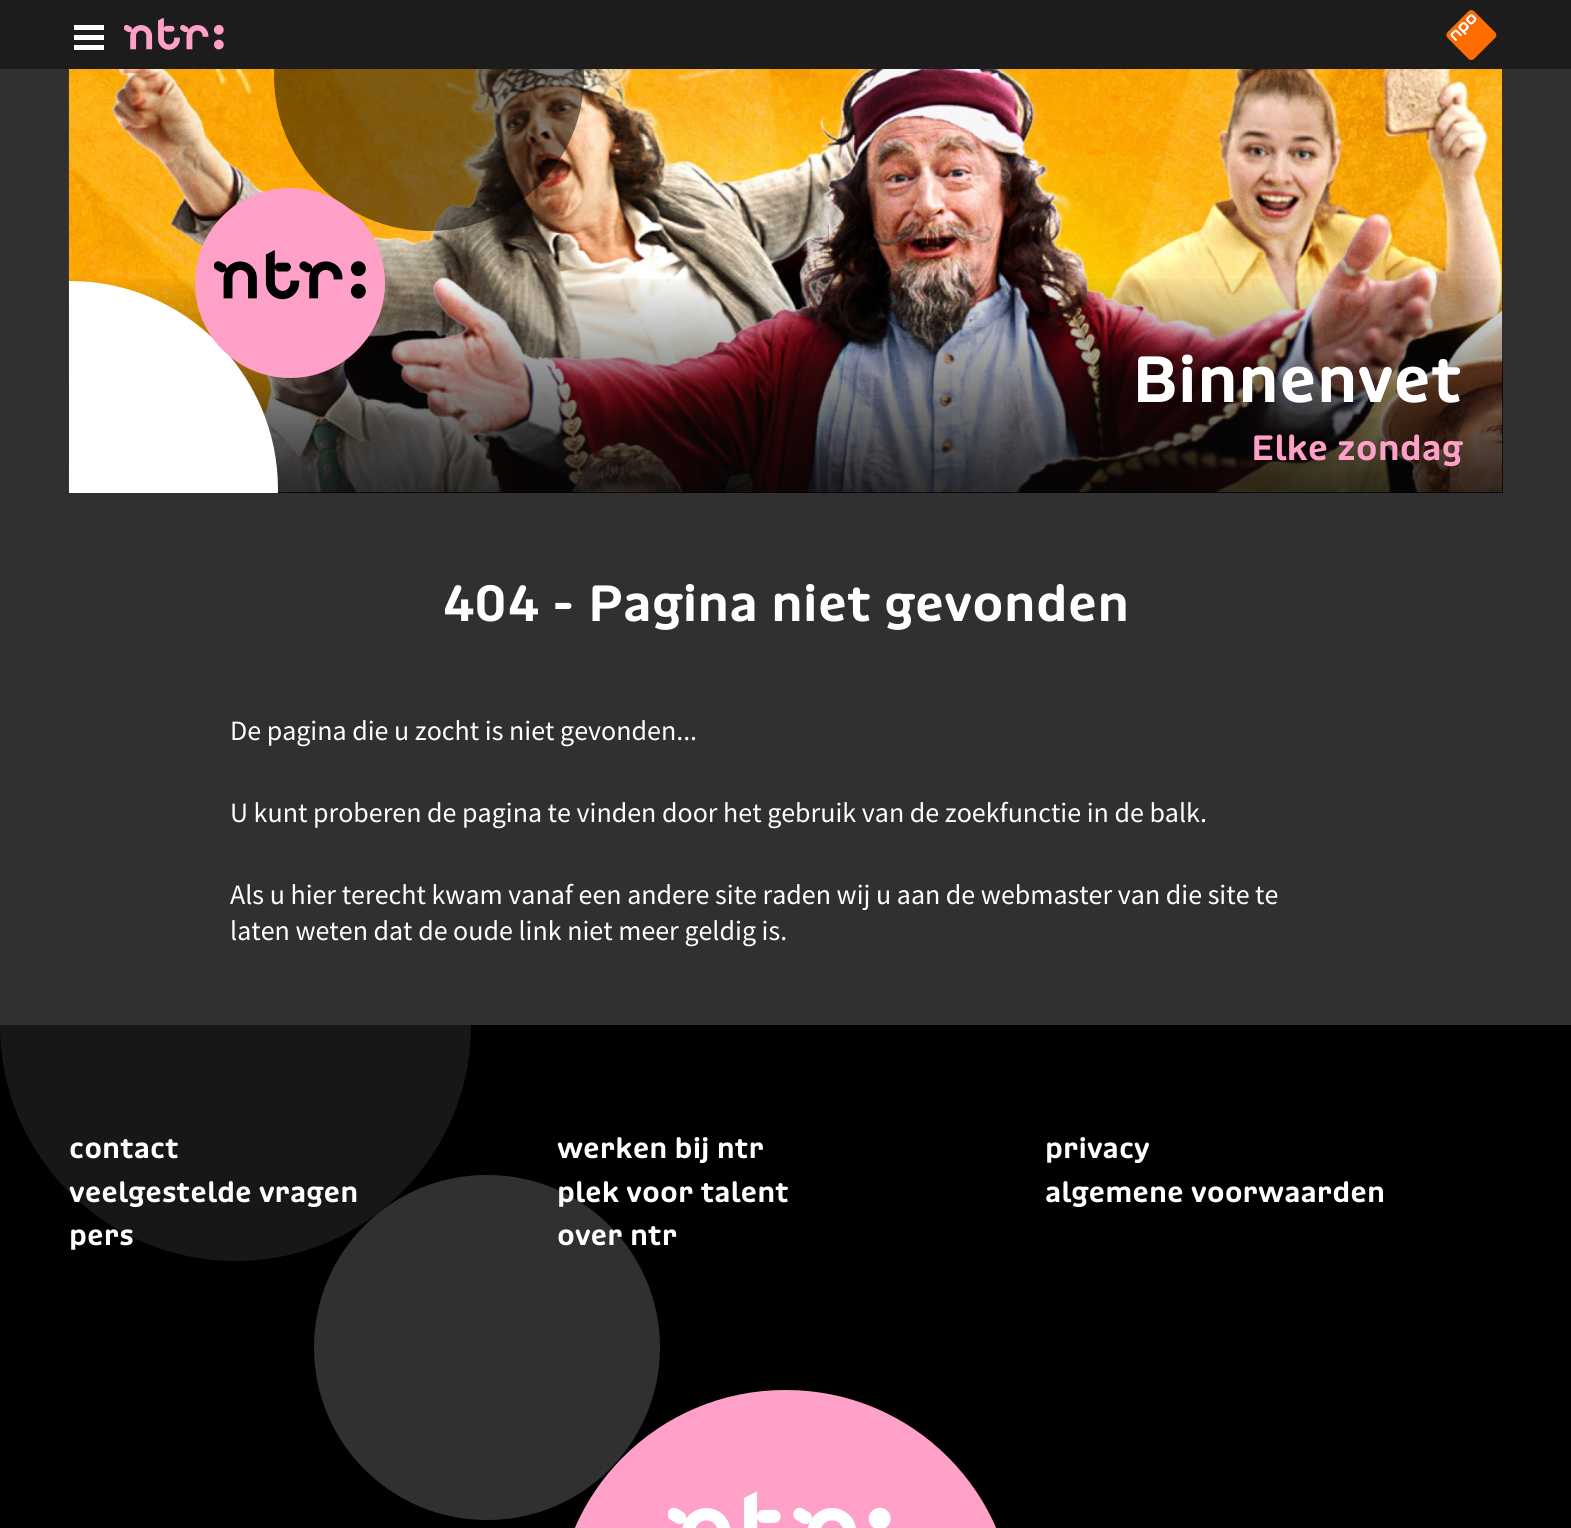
#include <cairo.h>
#include <math.h>
#include <stddef.h>

static cairo_t *ctx;

static void use_color(int r, int g, int b) {
    cairo_set_source_rgb(ctx, r / 255.0, g / 255.0, b / 255.0);
}

static void round_rect(double x, double y, double w, double h, double r) {
    cairo_new_sub_path(ctx);
    cairo_arc(ctx, x + w - r, y + h - r, r, 0, M_PI / 2);
    cairo_arc(ctx, x + r, y + h - r, r, M_PI / 2, M_PI);
    cairo_arc(ctx, x + r, y + r, r, M_PI, 1.5 * M_PI);
    cairo_arc(ctx, x + w - r, y + r, r, 1.5 * M_PI, 2 * M_PI);
    cairo_close_path(ctx);
}

static void picture(const char *path, double x, double y, double w, double h) {
    cairo_surface_t *image = cairo_image_surface_create_from_png(path);
    cairo_save(ctx);
    cairo_set_source_surface(ctx, image, x, y);
    cairo_rectangle(ctx, x, y, w, h);
    cairo_fill(ctx);
    cairo_restore(ctx);
    cairo_surface_destroy(image);
}

int main(void) {
    cairo_surface_t *surface = cairo_image_surface_create(CAIRO_FORMAT_RGB24, 1571, 1528);
    ctx = cairo_create(surface);
    cairo_font_options_t *options = cairo_font_options_create();
    cairo_font_options_set_hint_metrics(options, CAIRO_HINT_METRICS_OFF);
    cairo_font_options_set_hint_style(options, CAIRO_HINT_STYLE_NONE);
    cairo_set_font_options(ctx, options);
    cairo_set_miter_limit(ctx, 4);
    cairo_pattern_t *gradient;
    use_color(48, 48, 48);
    cairo_paint(ctx);
    use_color(0, 0, 0);
    cairo_rectangle(ctx, 277, 69, 1226, 424);
    cairo_fill(ctx);
    picture("img3.png", 68, 69, 1435, 424);
    cairo_set_source_rgba(ctx, 0, 0, 0, 0.5);
    round_rect(274, -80, 310, 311, 155);
    cairo_fill(ctx);
    use_color(28, 28, 28);
    cairo_rectangle(ctx, 0, 0, 1571, 69);
    cairo_fill(ctx);
    use_color(255, 255, 255);
    cairo_rectangle(ctx, 74, 25, 30, 5);
    cairo_fill(ctx);
    cairo_rectangle(ctx, 74, 35, 30, 5);
    cairo_fill(ctx);
    cairo_rectangle(ctx, 74, 45, 30, 5);
    cairo_fill(ctx);
    picture("img1.png", 124, 18, 100, 32);
    picture("img2.png", 1446, 10, 51, 50);
    gradient = cairo_pattern_create_linear(786, 272, 786, 493);
    cairo_pattern_add_color_stop_rgba(gradient, 0, 0, 0, 0, 0);
    cairo_pattern_add_color_stop_rgba(gradient, 1, 0, 0, 0, 0.7);
    cairo_set_source(ctx, gradient);
    cairo_pattern_destroy(gradient);
    cairo_rectangle(ctx, 69, 279, 1434, 214);
    cairo_fill(ctx);
    cairo_save(ctx);
    cairo_rectangle(ctx, 69, 69, 1434, 424);
    cairo_clip(ctx);
    use_color(255, 255, 255);
    cairo_arc(ctx, 69.5, 489.5, 208.5, 0, 2 * M_PI);
    cairo_fill(ctx);
    cairo_restore(ctx);
    use_color(255, 160, 200);
    cairo_arc(ctx, 290, 283, 95, 0, 2 * M_PI);
    cairo_fill(ctx);
    picture("img4.png", 214, 250, 152, 50);
    cairo_select_font_face(ctx, "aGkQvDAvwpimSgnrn", CAIRO_FONT_SLANT_NORMAL, CAIRO_FONT_WEIGHT_BOLD);
    cairo_set_font_size(ctx, 71.5);
    use_color(255, 255, 255);
    cairo_move_to(ctx, 1132, 402);
    cairo_show_text(ctx, "Binnenvet");
    cairo_set_font_size(ctx, 38.5);
    use_color(255, 160, 200);
    cairo_move_to(ctx, 1251, 460);
    cairo_show_text(ctx, "Elke zondag");
    cairo_set_font_size(ctx, 55.75);
    use_color(255, 255, 255);
    cairo_move_to(ctx, 442, 621);
    cairo_show_text(ctx, "404 - Pagina niet gevonden");
    cairo_select_font_face(ctx, "Source Sans Pro", CAIRO_FONT_SLANT_NORMAL, CAIRO_FONT_WEIGHT_NORMAL);
    cairo_set_font_size(ctx, 27.95);
    cairo_move_to(ctx, 230, 740);
    cairo_show_text(ctx, "De pagina die u zocht is niet gevonden...");
    cairo_move_to(ctx, 230, 822);
    cairo_show_text(ctx, "U kunt proberen de pagina te vinden door het gebruik van de zoekfunctie in de balk.");
    cairo_move_to(ctx, 230, 904);
    cairo_show_text(ctx, "Als u hier terecht kwam vanaf een andere site raden wij u aan de webmaster van die site te");
    cairo_move_to(ctx, 230, 940);
    cairo_show_text(ctx, "laten weten dat de oude link niet meer geldig is.");
    use_color(0, 0, 0);
    cairo_rectangle(ctx, 0, 1025, 1571, 503);
    cairo_fill(ctx);
    cairo_save(ctx);
    cairo_rectangle(ctx, 0, 1025, 1571, 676);
    cairo_clip(ctx);
    use_color(23, 23, 23);
    cairo_arc(ctx, 235.5, 1025.5, 235.5, 0, 2 * M_PI);
    cairo_fill(ctx);
    cairo_restore(ctx);
    use_color(48, 48, 48);
    round_rect(314, 1175, 346, 345, 172.5);
    cairo_fill(ctx);
    cairo_select_font_face(ctx, "aGkQvDAvwpimSgnrn", CAIRO_FONT_SLANT_NORMAL, CAIRO_FONT_WEIGHT_BOLD);
    cairo_set_font_size(ctx, 31.5);
    use_color(255, 255, 255);
    cairo_move_to(ctx, 69, 1158);
    cairo_show_text(ctx, "contact");
    cairo_move_to(ctx, 557, 1158);
    cairo_show_text(ctx, "werken bij ntr");
    cairo_move_to(ctx, 1045, 1158);
    cairo_show_text(ctx, "privacy");
    cairo_move_to(ctx, 69, 1202);
    cairo_show_text(ctx, "veelgestelde vragen");
    cairo_move_to(ctx, 557, 1202);
    cairo_show_text(ctx, "plek voor talent");
    cairo_move_to(ctx, 1045, 1202);
    cairo_show_text(ctx, "algemene voorwaarden");
    cairo_move_to(ctx, 69, 1245);
    cairo_show_text(ctx, "pers");
    cairo_move_to(ctx, 557, 1245);
    cairo_show_text(ctx, "over ntr");
    use_color(255, 160, 200);
    cairo_new_path(ctx);
    cairo_move_to(ctx, 785, 1390);
    cairo_line_to(ctx, 786, 1390);
    cairo_curve_to(ctx, 912.5, 1390, 1015, 1492.5, 1015, 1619);
    cairo_line_to(ctx, 1015, 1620);
    cairo_line_to(ctx, 556, 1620);
    cairo_line_to(ctx, 556, 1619);
    cairo_curve_to(ctx, 556, 1492.5, 658.5, 1390, 785, 1390);
    cairo_close_path(ctx);
    cairo_fill(ctx);
    picture("img5.png", 668, 1491, 223, 37);
    cairo_surface_write_to_png(surface, "result.png");
    cairo_font_options_destroy(options);
    cairo_destroy(ctx);
    cairo_surface_destroy(surface);
    return 0;
}
